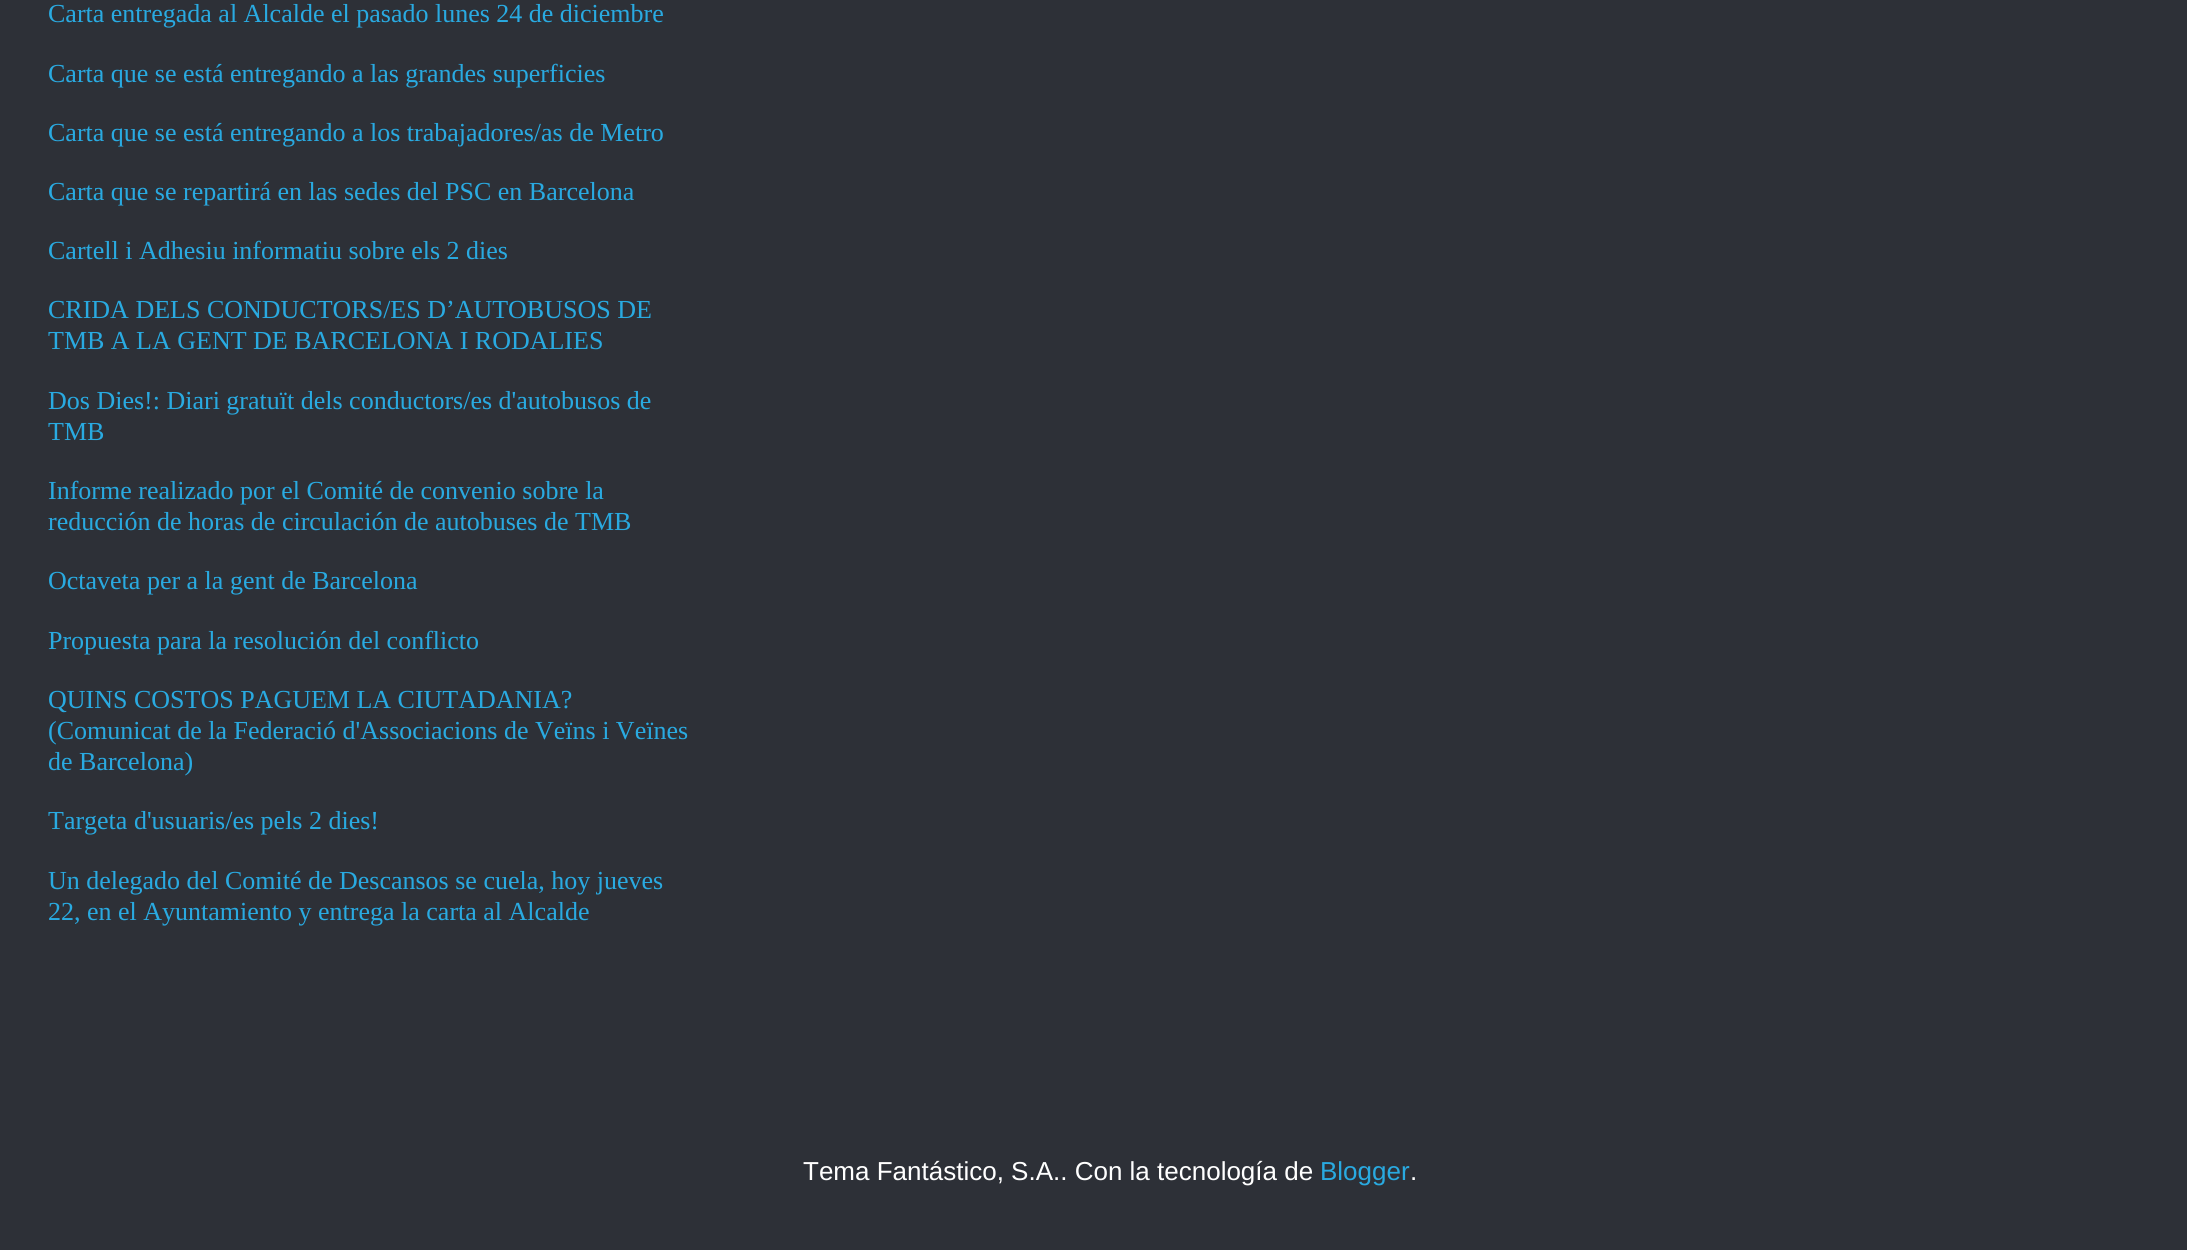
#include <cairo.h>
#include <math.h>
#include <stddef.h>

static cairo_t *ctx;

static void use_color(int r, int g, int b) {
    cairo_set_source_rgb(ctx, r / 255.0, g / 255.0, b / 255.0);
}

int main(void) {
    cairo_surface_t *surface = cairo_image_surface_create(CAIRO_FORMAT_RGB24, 2187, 1250);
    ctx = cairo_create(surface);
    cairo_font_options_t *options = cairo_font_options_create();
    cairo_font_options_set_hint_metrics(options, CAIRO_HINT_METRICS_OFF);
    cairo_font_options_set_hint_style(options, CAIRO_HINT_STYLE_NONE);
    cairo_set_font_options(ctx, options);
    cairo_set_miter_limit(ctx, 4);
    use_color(45, 48, 55);
    cairo_paint(ctx);
    cairo_select_font_face(ctx, "Liberation Serif", CAIRO_FONT_SLANT_NORMAL, CAIRO_FONT_WEIGHT_NORMAL);
    cairo_set_font_size(ctx, 26);
    use_color(41, 170, 225);
    cairo_move_to(ctx, 48, 22);
    cairo_show_text(ctx, "Carta entregada al Alcalde el pasado lunes 24 de diciembre");
    cairo_move_to(ctx, 48, 82);
    cairo_show_text(ctx, "Carta que se está entregando a las grandes superficies");
    cairo_move_to(ctx, 48, 141);
    cairo_show_text(ctx, "Carta que se está entregando a los trabajadores/as de Metro");
    cairo_move_to(ctx, 48, 200);
    cairo_show_text(ctx, "Carta que se repartirá en las sedes del PSC en Barcelona");
    cairo_move_to(ctx, 48, 259);
    cairo_show_text(ctx, "Cartell i Adhesiu informatiu sobre els 2 dies");
    cairo_move_to(ctx, 48, 318);
    cairo_show_text(ctx, "CRIDA DELS CONDUCTORS/ES D’AUTOBUSOS DE");
    cairo_move_to(ctx, 48, 349);
    cairo_show_text(ctx, "TMB A LA GENT DE BARCELONA I RODALIES");
    cairo_move_to(ctx, 48, 409);
    cairo_show_text(ctx, "Dos Dies!: Diari gratuït dels conductors/es d'autobusos de");
    cairo_move_to(ctx, 48, 440);
    cairo_show_text(ctx, "TMB");
    cairo_move_to(ctx, 48, 499);
    cairo_show_text(ctx, "Informe realizado por el Comité de convenio sobre la");
    cairo_move_to(ctx, 48, 530);
    cairo_show_text(ctx, "reducción de horas de circulación de autobuses de TMB");
    cairo_move_to(ctx, 48, 589);
    cairo_show_text(ctx, "Octaveta per a la gent de Barcelona");
    cairo_move_to(ctx, 48, 649);
    cairo_show_text(ctx, "Propuesta para la resolución del conflicto");
    cairo_move_to(ctx, 48, 708);
    cairo_show_text(ctx, "QUINS COSTOS PAGUEM LA CIUTADANIA?");
    cairo_move_to(ctx, 48, 739);
    cairo_show_text(ctx, "(Comunicat de la Federació d'Associacions de Veïns i Veïnes");
    cairo_move_to(ctx, 48, 770);
    cairo_show_text(ctx, "de Barcelona)");
    cairo_move_to(ctx, 48, 829);
    cairo_show_text(ctx, "Targeta d'usuaris/es pels 2 dies!");
    cairo_move_to(ctx, 48, 889);
    cairo_show_text(ctx, "Un delegado del Comité de Descansos se cuela, hoy jueves");
    cairo_move_to(ctx, 48, 920);
    cairo_show_text(ctx, "22, en el Ayuntamiento y entrega la carta al Alcalde");
    cairo_select_font_face(ctx, "Liberation Sans", CAIRO_FONT_SLANT_NORMAL, CAIRO_FONT_WEIGHT_NORMAL);
    use_color(255, 255, 255);
    cairo_move_to(ctx, 803, 1180);
    cairo_show_text(ctx, "Tema Fantástico, S.A.. Con la tecnología de");
    use_color(41, 170, 225);
    cairo_move_to(ctx, 1320, 1180);
    cairo_show_text(ctx, "Blogger");
    use_color(255, 255, 255);
    cairo_move_to(ctx, 1410, 1180);
    cairo_show_text(ctx, ".");
    cairo_surface_write_to_png(surface, "result.png");
    cairo_font_options_destroy(options);
    cairo_destroy(ctx);
    cairo_surface_destroy(surface);
    return 0;
}
